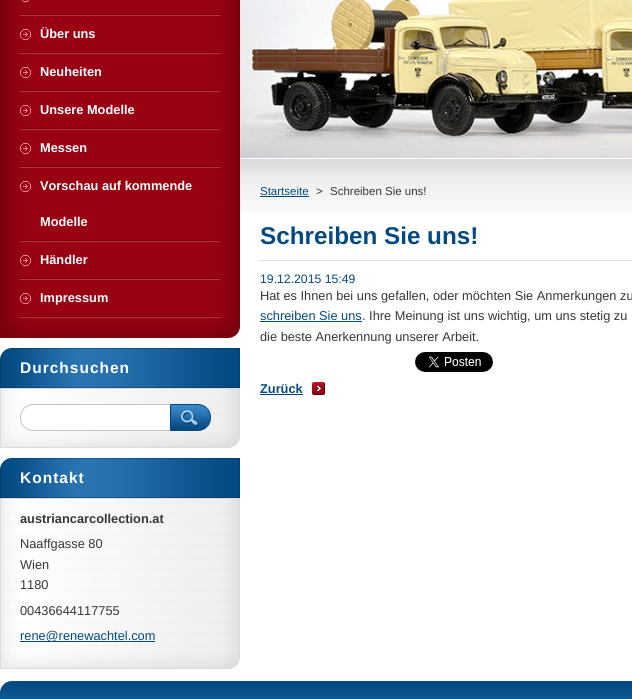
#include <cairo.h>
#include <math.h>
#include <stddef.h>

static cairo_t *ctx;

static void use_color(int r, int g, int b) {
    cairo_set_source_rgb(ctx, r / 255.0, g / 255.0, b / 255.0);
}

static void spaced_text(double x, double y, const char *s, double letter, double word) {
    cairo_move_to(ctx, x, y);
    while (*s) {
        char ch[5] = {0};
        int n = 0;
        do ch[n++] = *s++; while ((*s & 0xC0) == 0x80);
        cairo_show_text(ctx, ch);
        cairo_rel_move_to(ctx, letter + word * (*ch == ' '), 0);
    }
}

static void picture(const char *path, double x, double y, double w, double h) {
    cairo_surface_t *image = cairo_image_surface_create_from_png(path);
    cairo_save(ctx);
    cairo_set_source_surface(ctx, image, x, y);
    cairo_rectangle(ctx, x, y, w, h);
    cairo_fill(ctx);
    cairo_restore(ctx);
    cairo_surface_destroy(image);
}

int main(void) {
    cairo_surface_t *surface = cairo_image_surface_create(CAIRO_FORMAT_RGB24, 632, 699);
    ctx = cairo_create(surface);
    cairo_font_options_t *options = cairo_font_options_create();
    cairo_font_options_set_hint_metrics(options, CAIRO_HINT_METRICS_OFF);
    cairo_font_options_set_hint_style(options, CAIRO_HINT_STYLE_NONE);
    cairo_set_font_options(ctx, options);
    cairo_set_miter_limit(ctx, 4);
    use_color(255, 255, 255);
    cairo_paint(ctx);
    picture("img1.png", 240, 158, 392, 54);
    picture("img2.png", 0, 318, 240, 20);
    picture("img3.png", 0, 0, 240, 318);
    picture("img4.png", 20, 14, 200, 2);
    picture("img5.png", 22, 0, 7, 2);
    picture("img4.png", 20, 52, 200, 2);
    picture("img6.png", 20, 29, 11, 11);
    cairo_select_font_face(ctx, "Liberation Sans", CAIRO_FONT_SLANT_NORMAL, CAIRO_FONT_WEIGHT_BOLD);
    cairo_set_font_size(ctx, 12.8);
    use_color(255, 255, 255);
    cairo_move_to(ctx, 40, 38);
    cairo_show_text(ctx, "Über uns");
    picture("img4.png", 20, 90, 200, 2);
    picture("img6.png", 20, 67, 11, 11);
    cairo_move_to(ctx, 40, 76);
    cairo_show_text(ctx, "Neuheiten");
    picture("img4.png", 20, 128, 200, 2);
    picture("img6.png", 20, 105, 11, 11);
    cairo_move_to(ctx, 40, 114);
    cairo_show_text(ctx, "Unsere Modelle");
    picture("img4.png", 20, 166, 200, 2);
    picture("img6.png", 20, 143, 11, 11);
    cairo_move_to(ctx, 40, 152);
    cairo_show_text(ctx, "Messen");
    picture("img4.png", 20, 240, 200, 2);
    picture("img6.png", 20, 181, 11, 11);
    cairo_move_to(ctx, 40, 190);
    cairo_show_text(ctx, "Vorschau auf kommende");
    cairo_move_to(ctx, 40, 226);
    cairo_show_text(ctx, "Modelle");
    picture("img4.png", 20, 278, 200, 2);
    picture("img6.png", 20, 255, 11, 11);
    cairo_move_to(ctx, 40, 264);
    cairo_show_text(ctx, "Händler");
    picture("img4.png", 20, 316, 200, 2);
    picture("img6.png", 20, 293, 11, 11);
    cairo_move_to(ctx, 40, 302);
    cairo_show_text(ctx, "Impressum");
    picture("img7.png", 0, 431, 240, 17);
    picture("img8.png", 0, 348, 240, 40);
    cairo_set_font_size(ctx, 15.5);
    spaced_text(20, 373, "Durchsuchen", 1, 0);
    picture("img9.png", 0, 389, 240, 42);
    use_color(219, 219, 219);
    cairo_rectangle(ctx, 0, 388, 240, 1);
    cairo_fill(ctx);
    picture("img10.png", 20, 404, 150, 27);
    picture("img11.png", 170, 404, 41, 27);
    picture("img7.png", 0, 652, 240, 17);
    picture("img8.png", 0, 458, 240, 40);
    use_color(255, 255, 255);
    spaced_text(20, 483, "Kontakt", 1, 0);
    picture("img12.png", 0, 499, 240, 153);
    use_color(219, 219, 219);
    cairo_rectangle(ctx, 0, 498, 240, 1);
    cairo_fill(ctx);
    cairo_set_font_size(ctx, 12.8);
    use_color(54, 54, 54);
    cairo_move_to(ctx, 20, 523);
    cairo_show_text(ctx, "austriancarcollection.at");
    cairo_select_font_face(ctx, "Liberation Sans", CAIRO_FONT_SLANT_NORMAL, CAIRO_FONT_WEIGHT_NORMAL);
    cairo_move_to(ctx, 20, 548);
    cairo_show_text(ctx, "Naaffgasse 80");
    cairo_move_to(ctx, 20, 569);
    cairo_show_text(ctx, "Wien");
    cairo_move_to(ctx, 20, 589);
    cairo_show_text(ctx, "1180");
    cairo_move_to(ctx, 20, 615);
    cairo_show_text(ctx, "00436644117755");
    use_color(2, 73, 129);
    cairo_rectangle(ctx, 20, 641, 135, 1);
    cairo_fill(ctx);
    cairo_move_to(ctx, 20, 640);
    cairo_show_text(ctx, "rene@renewachtel.com");
    picture("img13.png", 240, 0, 392, 158);
    cairo_set_font_size(ctx, 11.5);
    cairo_move_to(ctx, 260, 195);
    cairo_show_text(ctx, "Startseite");
    cairo_rectangle(ctx, 260, 196, 49, 1);
    cairo_fill(ctx);
    use_color(54, 54, 54);
    cairo_move_to(ctx, 316, 195);
    cairo_show_text(ctx, ">");
    cairo_move_to(ctx, 330, 195);
    cairo_show_text(ctx, "Schreiben Sie uns!");
    use_color(225, 225, 225);
    cairo_rectangle(ctx, 260, 260, 372, 1);
    cairo_fill(ctx);
    cairo_select_font_face(ctx, "Liberation Sans", CAIRO_FONT_SLANT_NORMAL, CAIRO_FONT_WEIGHT_BOLD);
    cairo_set_font_size(ctx, 24.25);
    use_color(2, 73, 129);
    cairo_move_to(ctx, 260, 244);
    cairo_show_text(ctx, "Schreiben Sie uns!");
    cairo_select_font_face(ctx, "Liberation Sans", CAIRO_FONT_SLANT_NORMAL, CAIRO_FONT_WEIGHT_NORMAL);
    cairo_set_font_size(ctx, 12.25);
    cairo_move_to(ctx, 260, 283);
    cairo_show_text(ctx, "19.12.2015 15:49");
    cairo_set_font_size(ctx, 12.8);
    use_color(54, 54, 54);
    cairo_move_to(ctx, 260, 300);
    cairo_show_text(ctx, "Hat es Ihnen bei uns gefallen, oder möchten Sie Anmerkungen zu");
    use_color(2, 73, 129);
    cairo_move_to(ctx, 260, 320);
    cairo_show_text(ctx, "schreiben Sie uns");
    cairo_rectangle(ctx, 260, 321, 102, 1);
    cairo_fill(ctx);
    use_color(54, 54, 54);
    cairo_move_to(ctx, 362, 320);
    cairo_show_text(ctx, ". Ihre Meinung ist uns wichtig, um uns stetig zu");
    cairo_move_to(ctx, 260, 341);
    cairo_show_text(ctx, "die beste Anerkennung unserer Arbeit.");
    picture("img14.png", 415, 352, 78, 20);
    picture("img15.png", 312, 382, 13, 13);
    cairo_select_font_face(ctx, "Liberation Sans", CAIRO_FONT_SLANT_NORMAL, CAIRO_FONT_WEIGHT_BOLD);
    use_color(2, 73, 129);
    cairo_move_to(ctx, 260, 393);
    cairo_show_text(ctx, "Zurück");
    cairo_rectangle(ctx, 260, 394, 43, 1);
    cairo_fill(ctx);
    picture("img16.png", 0, 681, 632, 18);
    cairo_surface_write_to_png(surface, "result.png");
    cairo_font_options_destroy(options);
    cairo_destroy(ctx);
    cairo_surface_destroy(surface);
    return 0;
}
